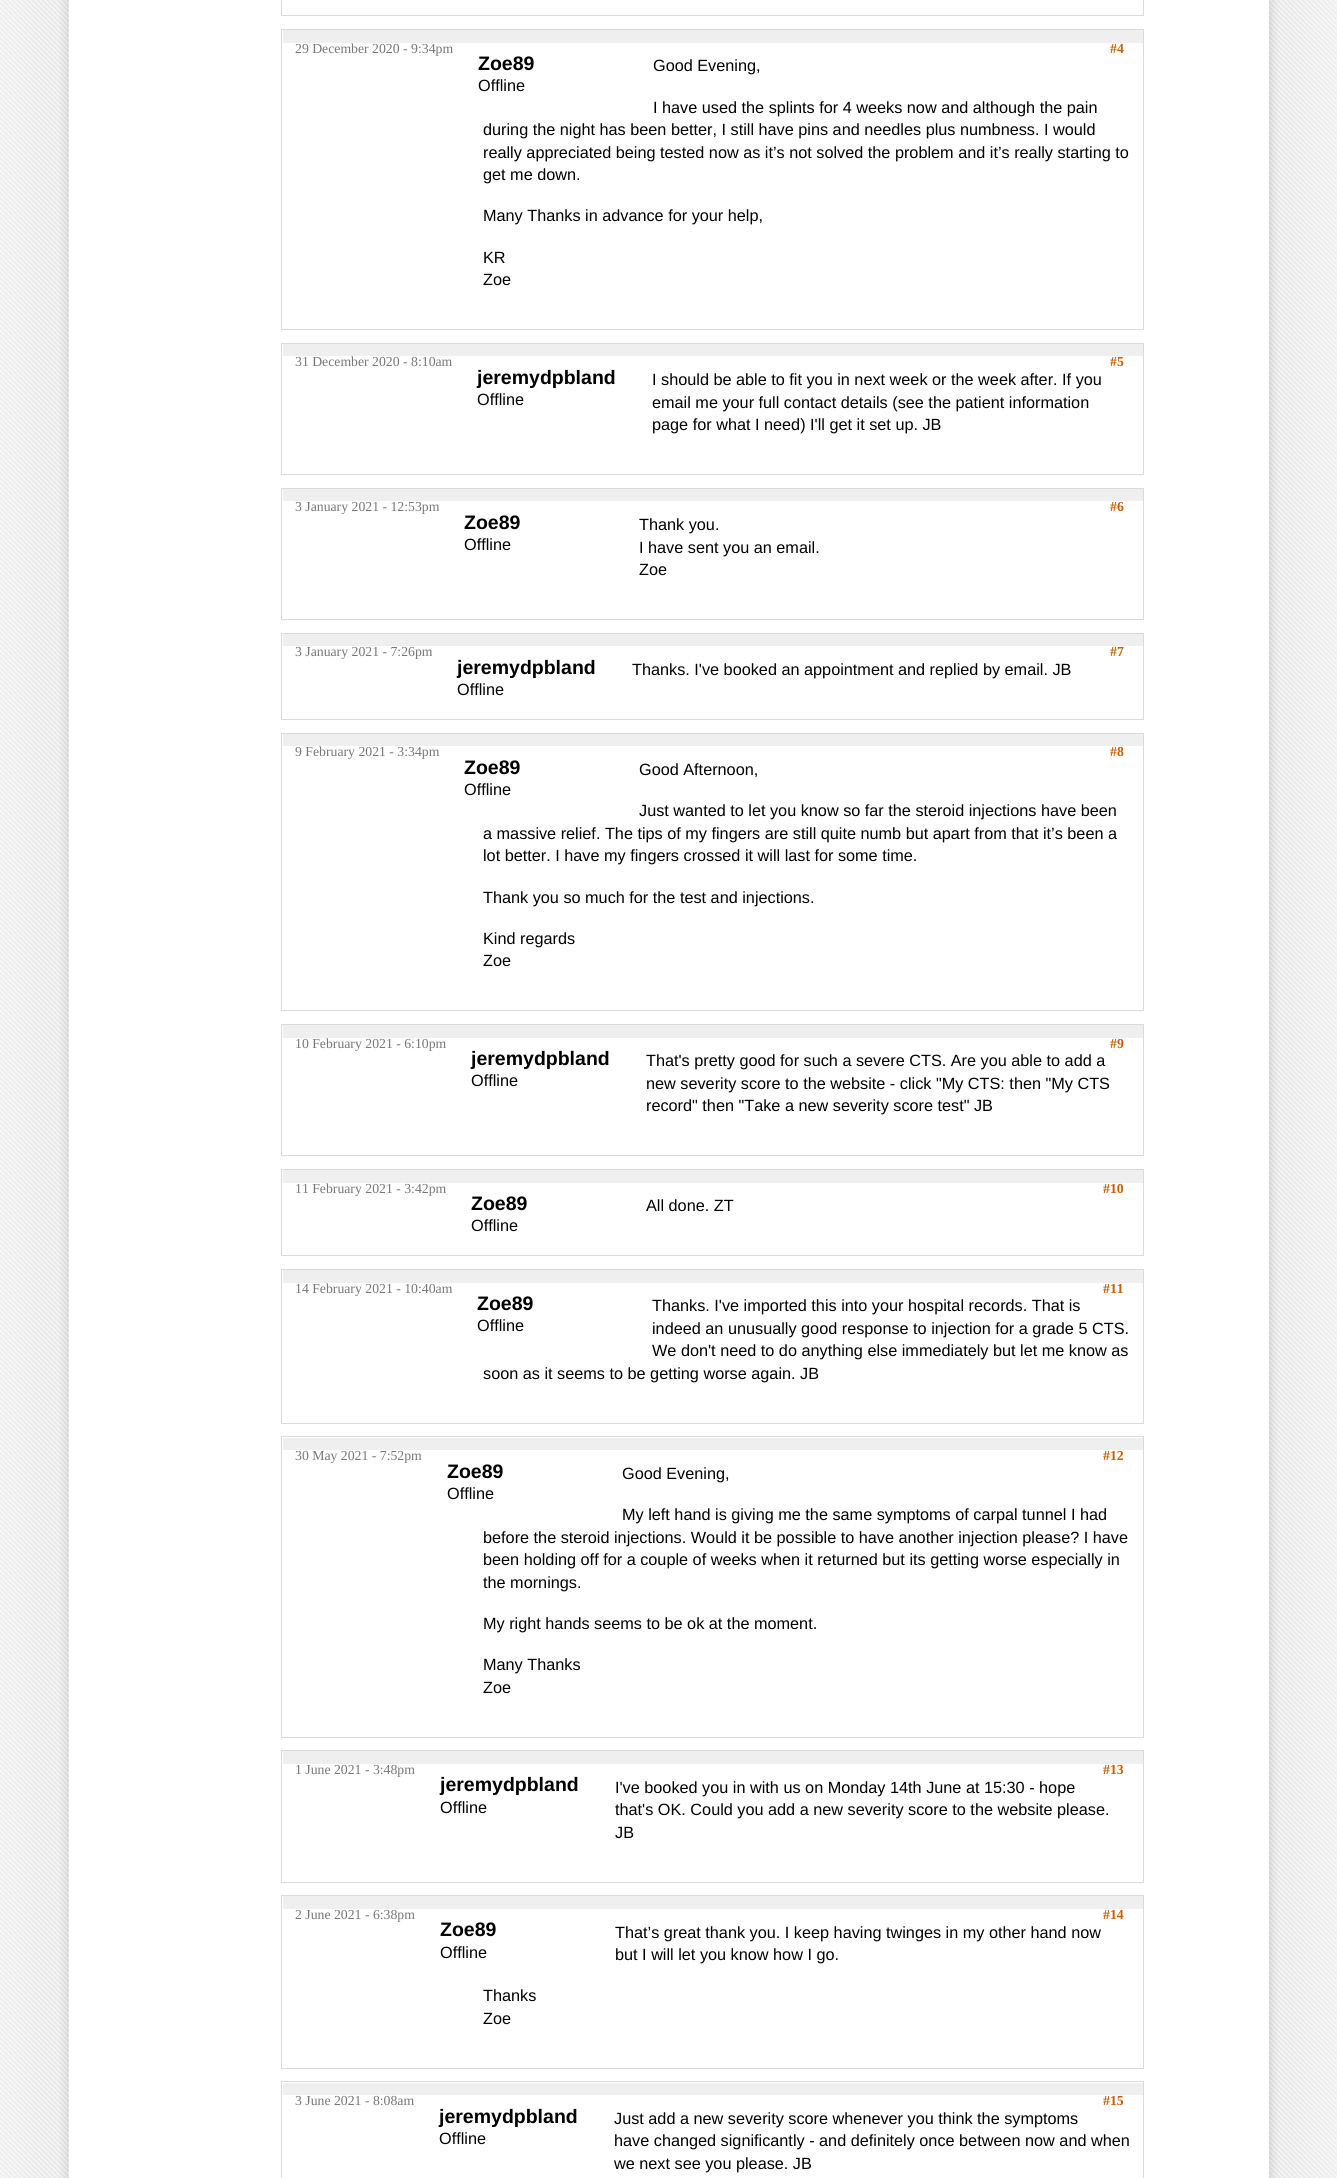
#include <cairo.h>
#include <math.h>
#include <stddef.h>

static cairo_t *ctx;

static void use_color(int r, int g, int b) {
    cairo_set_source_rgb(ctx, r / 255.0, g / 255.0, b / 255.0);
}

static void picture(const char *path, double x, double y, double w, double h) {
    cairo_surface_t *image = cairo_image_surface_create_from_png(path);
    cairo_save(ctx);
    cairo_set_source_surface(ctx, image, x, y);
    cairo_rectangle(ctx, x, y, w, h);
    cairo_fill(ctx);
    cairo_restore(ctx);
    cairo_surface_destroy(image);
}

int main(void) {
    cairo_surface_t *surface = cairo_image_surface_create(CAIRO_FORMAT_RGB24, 1337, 2178);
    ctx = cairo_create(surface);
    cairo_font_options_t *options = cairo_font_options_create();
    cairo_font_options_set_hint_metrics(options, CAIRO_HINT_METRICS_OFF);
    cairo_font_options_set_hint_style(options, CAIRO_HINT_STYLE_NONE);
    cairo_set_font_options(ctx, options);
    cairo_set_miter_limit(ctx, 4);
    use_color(255, 255, 255);
    cairo_paint(ctx);
    picture("img1.png", 0, 0, 1337, 2178);
    use_color(255, 255, 255);
    cairo_rectangle(ctx, 1268, 0, 1, 2178);
    cairo_fill(ctx);
    cairo_rectangle(ctx, 281.5, -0.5, 862, 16);
    use_color(218, 218, 218);
    cairo_set_line_width(ctx, 1);
    cairo_stroke(ctx);
    cairo_rectangle(ctx, 281.5, 29.5, 862, 300);
    cairo_stroke(ctx);
    use_color(239, 239, 239);
    cairo_rectangle(ctx, 283, 30, 860, 13);
    cairo_fill(ctx);
    cairo_select_font_face(ctx, "Liberation Serif", CAIRO_FONT_SLANT_NORMAL, CAIRO_FONT_WEIGHT_NORMAL);
    cairo_set_font_size(ctx, 13.75);
    use_color(119, 119, 119);
    cairo_move_to(ctx, 295, 53);
    cairo_show_text(ctx, "29 December 2020 - 9:34pm");
    cairo_select_font_face(ctx, "Liberation Serif", CAIRO_FONT_SLANT_NORMAL, CAIRO_FONT_WEIGHT_BOLD);
    use_color(203, 92, 0);
    cairo_move_to(ctx, 1110, 53);
    cairo_show_text(ctx, "#4");
    cairo_select_font_face(ctx, "Liberation Sans", CAIRO_FONT_SLANT_NORMAL, CAIRO_FONT_WEIGHT_BOLD);
    cairo_set_font_size(ctx, 19.5);
    use_color(0, 0, 0);
    cairo_move_to(ctx, 478, 70);
    cairo_show_text(ctx, "Zoe89");
    cairo_select_font_face(ctx, "Liberation Sans", CAIRO_FONT_SLANT_NORMAL, CAIRO_FONT_WEIGHT_NORMAL);
    cairo_set_font_size(ctx, 16.25);
    cairo_move_to(ctx, 478, 91);
    cairo_show_text(ctx, "Offline");
    cairo_move_to(ctx, 653, 71);
    cairo_show_text(ctx, "Good Evening,");
    cairo_move_to(ctx, 653, 113);
    cairo_show_text(ctx, "I have used the splints for 4 weeks now and although the pain");
    cairo_move_to(ctx, 483, 135);
    cairo_show_text(ctx, "during the night has been better, I still have pins and needles plus numbness. I would");
    cairo_move_to(ctx, 483, 158);
    cairo_show_text(ctx, "really appreciated being tested now as it’s not solved the problem and it’s really starting to");
    cairo_move_to(ctx, 483, 180);
    cairo_show_text(ctx, "get me down.");
    cairo_move_to(ctx, 483, 221);
    cairo_show_text(ctx, "Many Thanks in advance for your help,");
    cairo_move_to(ctx, 483, 263);
    cairo_show_text(ctx, "KR");
    cairo_move_to(ctx, 483, 285);
    cairo_show_text(ctx, "Zoe");
    cairo_rectangle(ctx, 281.5, 343.5, 862, 131);
    use_color(218, 218, 218);
    cairo_stroke(ctx);
    use_color(239, 239, 239);
    cairo_rectangle(ctx, 283, 344, 860, 12);
    cairo_fill(ctx);
    cairo_select_font_face(ctx, "Liberation Serif", CAIRO_FONT_SLANT_NORMAL, CAIRO_FONT_WEIGHT_NORMAL);
    cairo_set_font_size(ctx, 13.75);
    use_color(119, 119, 119);
    cairo_move_to(ctx, 295, 366);
    cairo_show_text(ctx, "31 December 2020 - 8:10am");
    cairo_select_font_face(ctx, "Liberation Serif", CAIRO_FONT_SLANT_NORMAL, CAIRO_FONT_WEIGHT_BOLD);
    use_color(203, 92, 0);
    cairo_move_to(ctx, 1110, 366);
    cairo_show_text(ctx, "#5");
    cairo_select_font_face(ctx, "Liberation Sans", CAIRO_FONT_SLANT_NORMAL, CAIRO_FONT_WEIGHT_BOLD);
    cairo_set_font_size(ctx, 19.5);
    use_color(0, 0, 0);
    cairo_move_to(ctx, 477, 384);
    cairo_show_text(ctx, "jeremydpbland");
    cairo_select_font_face(ctx, "Liberation Sans", CAIRO_FONT_SLANT_NORMAL, CAIRO_FONT_WEIGHT_NORMAL);
    cairo_set_font_size(ctx, 16.25);
    cairo_move_to(ctx, 477, 405);
    cairo_show_text(ctx, "Offline");
    cairo_move_to(ctx, 652, 385);
    cairo_show_text(ctx, "I should be able to fit you in next week or the week after. If you");
    cairo_move_to(ctx, 652, 408);
    cairo_show_text(ctx, "email me your full contact details (see the patient information");
    cairo_move_to(ctx, 652, 430);
    cairo_show_text(ctx, "page for what I need) I'll get it set up. JB");
    cairo_rectangle(ctx, 281.5, 488.5, 862, 131);
    use_color(218, 218, 218);
    cairo_stroke(ctx);
    use_color(239, 239, 239);
    cairo_rectangle(ctx, 283, 489, 860, 12);
    cairo_fill(ctx);
    cairo_select_font_face(ctx, "Liberation Serif", CAIRO_FONT_SLANT_NORMAL, CAIRO_FONT_WEIGHT_NORMAL);
    cairo_set_font_size(ctx, 13.75);
    use_color(119, 119, 119);
    cairo_move_to(ctx, 295, 511);
    cairo_show_text(ctx, "3 January 2021 - 12:53pm");
    cairo_select_font_face(ctx, "Liberation Serif", CAIRO_FONT_SLANT_NORMAL, CAIRO_FONT_WEIGHT_BOLD);
    use_color(203, 92, 0);
    cairo_move_to(ctx, 1110, 511);
    cairo_show_text(ctx, "#6");
    cairo_select_font_face(ctx, "Liberation Sans", CAIRO_FONT_SLANT_NORMAL, CAIRO_FONT_WEIGHT_BOLD);
    cairo_set_font_size(ctx, 19.5);
    use_color(0, 0, 0);
    cairo_move_to(ctx, 464, 529);
    cairo_show_text(ctx, "Zoe89");
    cairo_select_font_face(ctx, "Liberation Sans", CAIRO_FONT_SLANT_NORMAL, CAIRO_FONT_WEIGHT_NORMAL);
    cairo_set_font_size(ctx, 16.25);
    cairo_move_to(ctx, 464, 550);
    cairo_show_text(ctx, "Offline");
    cairo_move_to(ctx, 639, 530);
    cairo_show_text(ctx, "Thank you.");
    cairo_move_to(ctx, 639, 553);
    cairo_show_text(ctx, "I have sent you an email.");
    cairo_move_to(ctx, 639, 575);
    cairo_show_text(ctx, "Zoe");
    cairo_rectangle(ctx, 281.5, 633.5, 862, 86);
    use_color(218, 218, 218);
    cairo_stroke(ctx);
    use_color(239, 239, 239);
    cairo_rectangle(ctx, 283, 634, 860, 12);
    cairo_fill(ctx);
    cairo_select_font_face(ctx, "Liberation Serif", CAIRO_FONT_SLANT_NORMAL, CAIRO_FONT_WEIGHT_NORMAL);
    cairo_set_font_size(ctx, 13.75);
    use_color(119, 119, 119);
    cairo_move_to(ctx, 295, 656);
    cairo_show_text(ctx, "3 January 2021 - 7:26pm");
    cairo_select_font_face(ctx, "Liberation Serif", CAIRO_FONT_SLANT_NORMAL, CAIRO_FONT_WEIGHT_BOLD);
    use_color(203, 92, 0);
    cairo_move_to(ctx, 1110, 656);
    cairo_show_text(ctx, "#7");
    cairo_select_font_face(ctx, "Liberation Sans", CAIRO_FONT_SLANT_NORMAL, CAIRO_FONT_WEIGHT_BOLD);
    cairo_set_font_size(ctx, 19.5);
    use_color(0, 0, 0);
    cairo_move_to(ctx, 457, 674);
    cairo_show_text(ctx, "jeremydpbland");
    cairo_select_font_face(ctx, "Liberation Sans", CAIRO_FONT_SLANT_NORMAL, CAIRO_FONT_WEIGHT_NORMAL);
    cairo_set_font_size(ctx, 16.25);
    cairo_move_to(ctx, 457, 695);
    cairo_show_text(ctx, "Offline");
    cairo_move_to(ctx, 632, 675);
    cairo_show_text(ctx, "Thanks. I've booked an appointment and replied by email. JB");
    cairo_rectangle(ctx, 281.5, 733.5, 862, 277);
    use_color(218, 218, 218);
    cairo_stroke(ctx);
    use_color(239, 239, 239);
    cairo_rectangle(ctx, 283, 734, 860, 12);
    cairo_fill(ctx);
    cairo_select_font_face(ctx, "Liberation Serif", CAIRO_FONT_SLANT_NORMAL, CAIRO_FONT_WEIGHT_NORMAL);
    cairo_set_font_size(ctx, 13.75);
    use_color(119, 119, 119);
    cairo_move_to(ctx, 295, 756);
    cairo_show_text(ctx, "9 February 2021 - 3:34pm");
    cairo_select_font_face(ctx, "Liberation Serif", CAIRO_FONT_SLANT_NORMAL, CAIRO_FONT_WEIGHT_BOLD);
    use_color(203, 92, 0);
    cairo_move_to(ctx, 1110, 756);
    cairo_show_text(ctx, "#8");
    cairo_select_font_face(ctx, "Liberation Sans", CAIRO_FONT_SLANT_NORMAL, CAIRO_FONT_WEIGHT_BOLD);
    cairo_set_font_size(ctx, 19.5);
    use_color(0, 0, 0);
    cairo_move_to(ctx, 464, 774);
    cairo_show_text(ctx, "Zoe89");
    cairo_select_font_face(ctx, "Liberation Sans", CAIRO_FONT_SLANT_NORMAL, CAIRO_FONT_WEIGHT_NORMAL);
    cairo_set_font_size(ctx, 16.25);
    cairo_move_to(ctx, 464, 795);
    cairo_show_text(ctx, "Offline");
    cairo_move_to(ctx, 639, 775);
    cairo_show_text(ctx, "Good Afternoon,");
    cairo_move_to(ctx, 639, 816);
    cairo_show_text(ctx, "Just wanted to let you know so far the steroid injections have been");
    cairo_move_to(ctx, 483, 839);
    cairo_show_text(ctx, "a massive relief. The tips of my fingers are still quite numb but apart from that it’s been a");
    cairo_move_to(ctx, 483, 861);
    cairo_show_text(ctx, "lot better. I have my fingers crossed it will last for some time.");
    cairo_move_to(ctx, 483, 903);
    cairo_show_text(ctx, "Thank you so much for the test and injections.");
    cairo_move_to(ctx, 483, 944);
    cairo_show_text(ctx, "Kind regards");
    cairo_move_to(ctx, 483, 966);
    cairo_show_text(ctx, "Zoe");
    cairo_rectangle(ctx, 281.5, 1024.5, 862, 131);
    use_color(218, 218, 218);
    cairo_stroke(ctx);
    use_color(239, 239, 239);
    cairo_rectangle(ctx, 283, 1025, 860, 13);
    cairo_fill(ctx);
    cairo_select_font_face(ctx, "Liberation Serif", CAIRO_FONT_SLANT_NORMAL, CAIRO_FONT_WEIGHT_NORMAL);
    cairo_set_font_size(ctx, 13.75);
    use_color(119, 119, 119);
    cairo_move_to(ctx, 295, 1048);
    cairo_show_text(ctx, "10 February 2021 - 6:10pm");
    cairo_select_font_face(ctx, "Liberation Serif", CAIRO_FONT_SLANT_NORMAL, CAIRO_FONT_WEIGHT_BOLD);
    use_color(203, 92, 0);
    cairo_move_to(ctx, 1110, 1048);
    cairo_show_text(ctx, "#9");
    cairo_select_font_face(ctx, "Liberation Sans", CAIRO_FONT_SLANT_NORMAL, CAIRO_FONT_WEIGHT_BOLD);
    cairo_set_font_size(ctx, 19.5);
    use_color(0, 0, 0);
    cairo_move_to(ctx, 471, 1065);
    cairo_show_text(ctx, "jeremydpbland");
    cairo_select_font_face(ctx, "Liberation Sans", CAIRO_FONT_SLANT_NORMAL, CAIRO_FONT_WEIGHT_NORMAL);
    cairo_set_font_size(ctx, 16.25);
    cairo_move_to(ctx, 471, 1086);
    cairo_show_text(ctx, "Offline");
    cairo_move_to(ctx, 646, 1066);
    cairo_show_text(ctx, "That's pretty good for such a severe CTS. Are you able to add a");
    cairo_move_to(ctx, 646, 1089);
    cairo_show_text(ctx, "new severity score to the website - click \"My CTS: then \"My CTS");
    cairo_move_to(ctx, 646, 1111);
    cairo_show_text(ctx, "record\" then \"Take a new severity score test\" JB");
    cairo_rectangle(ctx, 281.5, 1169.5, 862, 86);
    use_color(218, 218, 218);
    cairo_stroke(ctx);
    use_color(239, 239, 239);
    cairo_rectangle(ctx, 283, 1170, 860, 13);
    cairo_fill(ctx);
    cairo_select_font_face(ctx, "Liberation Serif", CAIRO_FONT_SLANT_NORMAL, CAIRO_FONT_WEIGHT_NORMAL);
    cairo_set_font_size(ctx, 13.75);
    use_color(119, 119, 119);
    cairo_move_to(ctx, 295, 1193);
    cairo_show_text(ctx, "11 February 2021 - 3:42pm");
    cairo_select_font_face(ctx, "Liberation Serif", CAIRO_FONT_SLANT_NORMAL, CAIRO_FONT_WEIGHT_BOLD);
    use_color(203, 92, 0);
    cairo_move_to(ctx, 1103, 1193);
    cairo_show_text(ctx, "#10");
    cairo_select_font_face(ctx, "Liberation Sans", CAIRO_FONT_SLANT_NORMAL, CAIRO_FONT_WEIGHT_BOLD);
    cairo_set_font_size(ctx, 19.5);
    use_color(0, 0, 0);
    cairo_move_to(ctx, 471, 1210);
    cairo_show_text(ctx, "Zoe89");
    cairo_select_font_face(ctx, "Liberation Sans", CAIRO_FONT_SLANT_NORMAL, CAIRO_FONT_WEIGHT_NORMAL);
    cairo_set_font_size(ctx, 16.25);
    cairo_move_to(ctx, 471, 1231);
    cairo_show_text(ctx, "Offline");
    cairo_move_to(ctx, 646, 1211);
    cairo_show_text(ctx, "All done. ZT");
    cairo_rectangle(ctx, 281.5, 1269.5, 862, 154);
    use_color(218, 218, 218);
    cairo_stroke(ctx);
    use_color(239, 239, 239);
    cairo_rectangle(ctx, 283, 1270, 860, 13);
    cairo_fill(ctx);
    cairo_select_font_face(ctx, "Liberation Serif", CAIRO_FONT_SLANT_NORMAL, CAIRO_FONT_WEIGHT_NORMAL);
    cairo_set_font_size(ctx, 13.75);
    use_color(119, 119, 119);
    cairo_move_to(ctx, 295, 1293);
    cairo_show_text(ctx, "14 February 2021 - 10:40am");
    cairo_select_font_face(ctx, "Liberation Serif", CAIRO_FONT_SLANT_NORMAL, CAIRO_FONT_WEIGHT_BOLD);
    use_color(203, 92, 0);
    cairo_move_to(ctx, 1103, 1293);
    cairo_show_text(ctx, "#11");
    cairo_select_font_face(ctx, "Liberation Sans", CAIRO_FONT_SLANT_NORMAL, CAIRO_FONT_WEIGHT_BOLD);
    cairo_set_font_size(ctx, 19.5);
    use_color(0, 0, 0);
    cairo_move_to(ctx, 477, 1310);
    cairo_show_text(ctx, "Zoe89");
    cairo_select_font_face(ctx, "Liberation Sans", CAIRO_FONT_SLANT_NORMAL, CAIRO_FONT_WEIGHT_NORMAL);
    cairo_set_font_size(ctx, 16.25);
    cairo_move_to(ctx, 477, 1331);
    cairo_show_text(ctx, "Offline");
    cairo_move_to(ctx, 652, 1311);
    cairo_show_text(ctx, "Thanks. I've imported this into your hospital records. That is");
    cairo_move_to(ctx, 652, 1334);
    cairo_show_text(ctx, "indeed an unusually good response to injection for a grade 5 CTS.");
    cairo_move_to(ctx, 652, 1356);
    cairo_show_text(ctx, "We don't need to do anything else immediately but let me know as");
    cairo_move_to(ctx, 483, 1379);
    cairo_show_text(ctx, "soon as it seems to be getting worse again. JB");
    cairo_rectangle(ctx, 281.5, 1436.5, 862, 301);
    use_color(218, 218, 218);
    cairo_stroke(ctx);
    use_color(239, 239, 239);
    cairo_rectangle(ctx, 283, 1438, 860, 12);
    cairo_fill(ctx);
    cairo_select_font_face(ctx, "Liberation Serif", CAIRO_FONT_SLANT_NORMAL, CAIRO_FONT_WEIGHT_NORMAL);
    cairo_set_font_size(ctx, 13.75);
    use_color(119, 119, 119);
    cairo_move_to(ctx, 295, 1460);
    cairo_show_text(ctx, "30 May 2021 - 7:52pm");
    cairo_select_font_face(ctx, "Liberation Serif", CAIRO_FONT_SLANT_NORMAL, CAIRO_FONT_WEIGHT_BOLD);
    use_color(203, 92, 0);
    cairo_move_to(ctx, 1103, 1460);
    cairo_show_text(ctx, "#12");
    cairo_select_font_face(ctx, "Liberation Sans", CAIRO_FONT_SLANT_NORMAL, CAIRO_FONT_WEIGHT_BOLD);
    cairo_set_font_size(ctx, 19.5);
    use_color(0, 0, 0);
    cairo_move_to(ctx, 447, 1478);
    cairo_show_text(ctx, "Zoe89");
    cairo_select_font_face(ctx, "Liberation Sans", CAIRO_FONT_SLANT_NORMAL, CAIRO_FONT_WEIGHT_NORMAL);
    cairo_set_font_size(ctx, 16.25);
    cairo_move_to(ctx, 447, 1499);
    cairo_show_text(ctx, "Offline");
    cairo_move_to(ctx, 622, 1479);
    cairo_show_text(ctx, "Good Evening,");
    cairo_move_to(ctx, 622, 1520);
    cairo_show_text(ctx, "My left hand is giving me the same symptoms of carpal tunnel I had");
    cairo_move_to(ctx, 483, 1543);
    cairo_show_text(ctx, "before the steroid injections. Would it be possible to have another injection please? I have");
    cairo_move_to(ctx, 483, 1565);
    cairo_show_text(ctx, "been holding off for a couple of weeks when it returned but its getting worse especially in");
    cairo_move_to(ctx, 483, 1588);
    cairo_show_text(ctx, "the mornings.");
    cairo_move_to(ctx, 483, 1629);
    cairo_show_text(ctx, "My right hands seems to be ok at the moment.");
    cairo_move_to(ctx, 483, 1670);
    cairo_show_text(ctx, "Many Thanks");
    cairo_move_to(ctx, 483, 1693);
    cairo_show_text(ctx, "Zoe");
    cairo_rectangle(ctx, 281.5, 1750.5, 862, 132);
    use_color(218, 218, 218);
    cairo_stroke(ctx);
    use_color(239, 239, 239);
    cairo_rectangle(ctx, 283, 1751, 860, 13);
    cairo_fill(ctx);
    cairo_select_font_face(ctx, "Liberation Serif", CAIRO_FONT_SLANT_NORMAL, CAIRO_FONT_WEIGHT_NORMAL);
    cairo_set_font_size(ctx, 13.75);
    use_color(119, 119, 119);
    cairo_move_to(ctx, 295, 1774);
    cairo_show_text(ctx, "1 June 2021 - 3:48pm");
    cairo_select_font_face(ctx, "Liberation Serif", CAIRO_FONT_SLANT_NORMAL, CAIRO_FONT_WEIGHT_BOLD);
    use_color(203, 92, 0);
    cairo_move_to(ctx, 1103, 1774);
    cairo_show_text(ctx, "#13");
    cairo_select_font_face(ctx, "Liberation Sans", CAIRO_FONT_SLANT_NORMAL, CAIRO_FONT_WEIGHT_BOLD);
    cairo_set_font_size(ctx, 19.5);
    use_color(0, 0, 0);
    cairo_move_to(ctx, 440, 1791);
    cairo_show_text(ctx, "jeremydpbland");
    cairo_select_font_face(ctx, "Liberation Sans", CAIRO_FONT_SLANT_NORMAL, CAIRO_FONT_WEIGHT_NORMAL);
    cairo_set_font_size(ctx, 16.25);
    cairo_move_to(ctx, 440, 1813);
    cairo_show_text(ctx, "Offline");
    cairo_move_to(ctx, 615, 1793);
    cairo_show_text(ctx, "I've booked you in with us on Monday 14th June at 15:30 - hope");
    cairo_move_to(ctx, 615, 1815);
    cairo_show_text(ctx, "that's OK. Could you add a new severity score to the website please.");
    cairo_move_to(ctx, 615, 1838);
    cairo_show_text(ctx, "JB");
    cairo_rectangle(ctx, 281.5, 1895.5, 862, 173);
    use_color(218, 218, 218);
    cairo_stroke(ctx);
    use_color(239, 239, 239);
    cairo_rectangle(ctx, 283, 1896, 860, 13);
    cairo_fill(ctx);
    cairo_select_font_face(ctx, "Liberation Serif", CAIRO_FONT_SLANT_NORMAL, CAIRO_FONT_WEIGHT_NORMAL);
    cairo_set_font_size(ctx, 13.75);
    use_color(119, 119, 119);
    cairo_move_to(ctx, 295, 1919);
    cairo_show_text(ctx, "2 June 2021 - 6:38pm");
    cairo_select_font_face(ctx, "Liberation Serif", CAIRO_FONT_SLANT_NORMAL, CAIRO_FONT_WEIGHT_BOLD);
    use_color(203, 92, 0);
    cairo_move_to(ctx, 1103, 1919);
    cairo_show_text(ctx, "#14");
    cairo_select_font_face(ctx, "Liberation Sans", CAIRO_FONT_SLANT_NORMAL, CAIRO_FONT_WEIGHT_BOLD);
    cairo_set_font_size(ctx, 19.5);
    use_color(0, 0, 0);
    cairo_move_to(ctx, 440, 1936);
    cairo_show_text(ctx, "Zoe89");
    cairo_select_font_face(ctx, "Liberation Sans", CAIRO_FONT_SLANT_NORMAL, CAIRO_FONT_WEIGHT_NORMAL);
    cairo_set_font_size(ctx, 16.25);
    cairo_move_to(ctx, 440, 1958);
    cairo_show_text(ctx, "Offline");
    cairo_move_to(ctx, 615, 1938);
    cairo_show_text(ctx, "That’s great thank you. I keep having twinges in my other hand now");
    cairo_move_to(ctx, 615, 1960);
    cairo_show_text(ctx, "but I will let you know how I go.");
    cairo_move_to(ctx, 483, 2001);
    cairo_show_text(ctx, "Thanks");
    cairo_move_to(ctx, 483, 2024);
    cairo_show_text(ctx, "Zoe");
    cairo_rectangle(ctx, 281.5, 2081.5, 862, 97);
    use_color(218, 218, 218);
    cairo_stroke(ctx);
    use_color(239, 239, 239);
    cairo_rectangle(ctx, 283, 2083, 860, 12);
    cairo_fill(ctx);
    cairo_select_font_face(ctx, "Liberation Serif", CAIRO_FONT_SLANT_NORMAL, CAIRO_FONT_WEIGHT_NORMAL);
    cairo_set_font_size(ctx, 13.75);
    use_color(119, 119, 119);
    cairo_move_to(ctx, 295, 2105);
    cairo_show_text(ctx, "3 June 2021 - 8:08am");
    cairo_select_font_face(ctx, "Liberation Serif", CAIRO_FONT_SLANT_NORMAL, CAIRO_FONT_WEIGHT_BOLD);
    use_color(203, 92, 0);
    cairo_move_to(ctx, 1103, 2105);
    cairo_show_text(ctx, "#15");
    cairo_select_font_face(ctx, "Liberation Sans", CAIRO_FONT_SLANT_NORMAL, CAIRO_FONT_WEIGHT_BOLD);
    cairo_set_font_size(ctx, 19.5);
    use_color(0, 0, 0);
    cairo_move_to(ctx, 439, 2123);
    cairo_show_text(ctx, "jeremydpbland");
    cairo_select_font_face(ctx, "Liberation Sans", CAIRO_FONT_SLANT_NORMAL, CAIRO_FONT_WEIGHT_NORMAL);
    cairo_set_font_size(ctx, 16.25);
    cairo_move_to(ctx, 439, 2144);
    cairo_show_text(ctx, "Offline");
    cairo_move_to(ctx, 614, 2124);
    cairo_show_text(ctx, "Just add a new severity score whenever you think the symptoms");
    cairo_move_to(ctx, 614, 2146);
    cairo_show_text(ctx, "have changed significantly - and definitely once between now and when");
    cairo_move_to(ctx, 614, 2169);
    cairo_show_text(ctx, "we next see you please. JB");
    cairo_surface_write_to_png(surface, "result.png");
    cairo_font_options_destroy(options);
    cairo_destroy(ctx);
    cairo_surface_destroy(surface);
    return 0;
}
